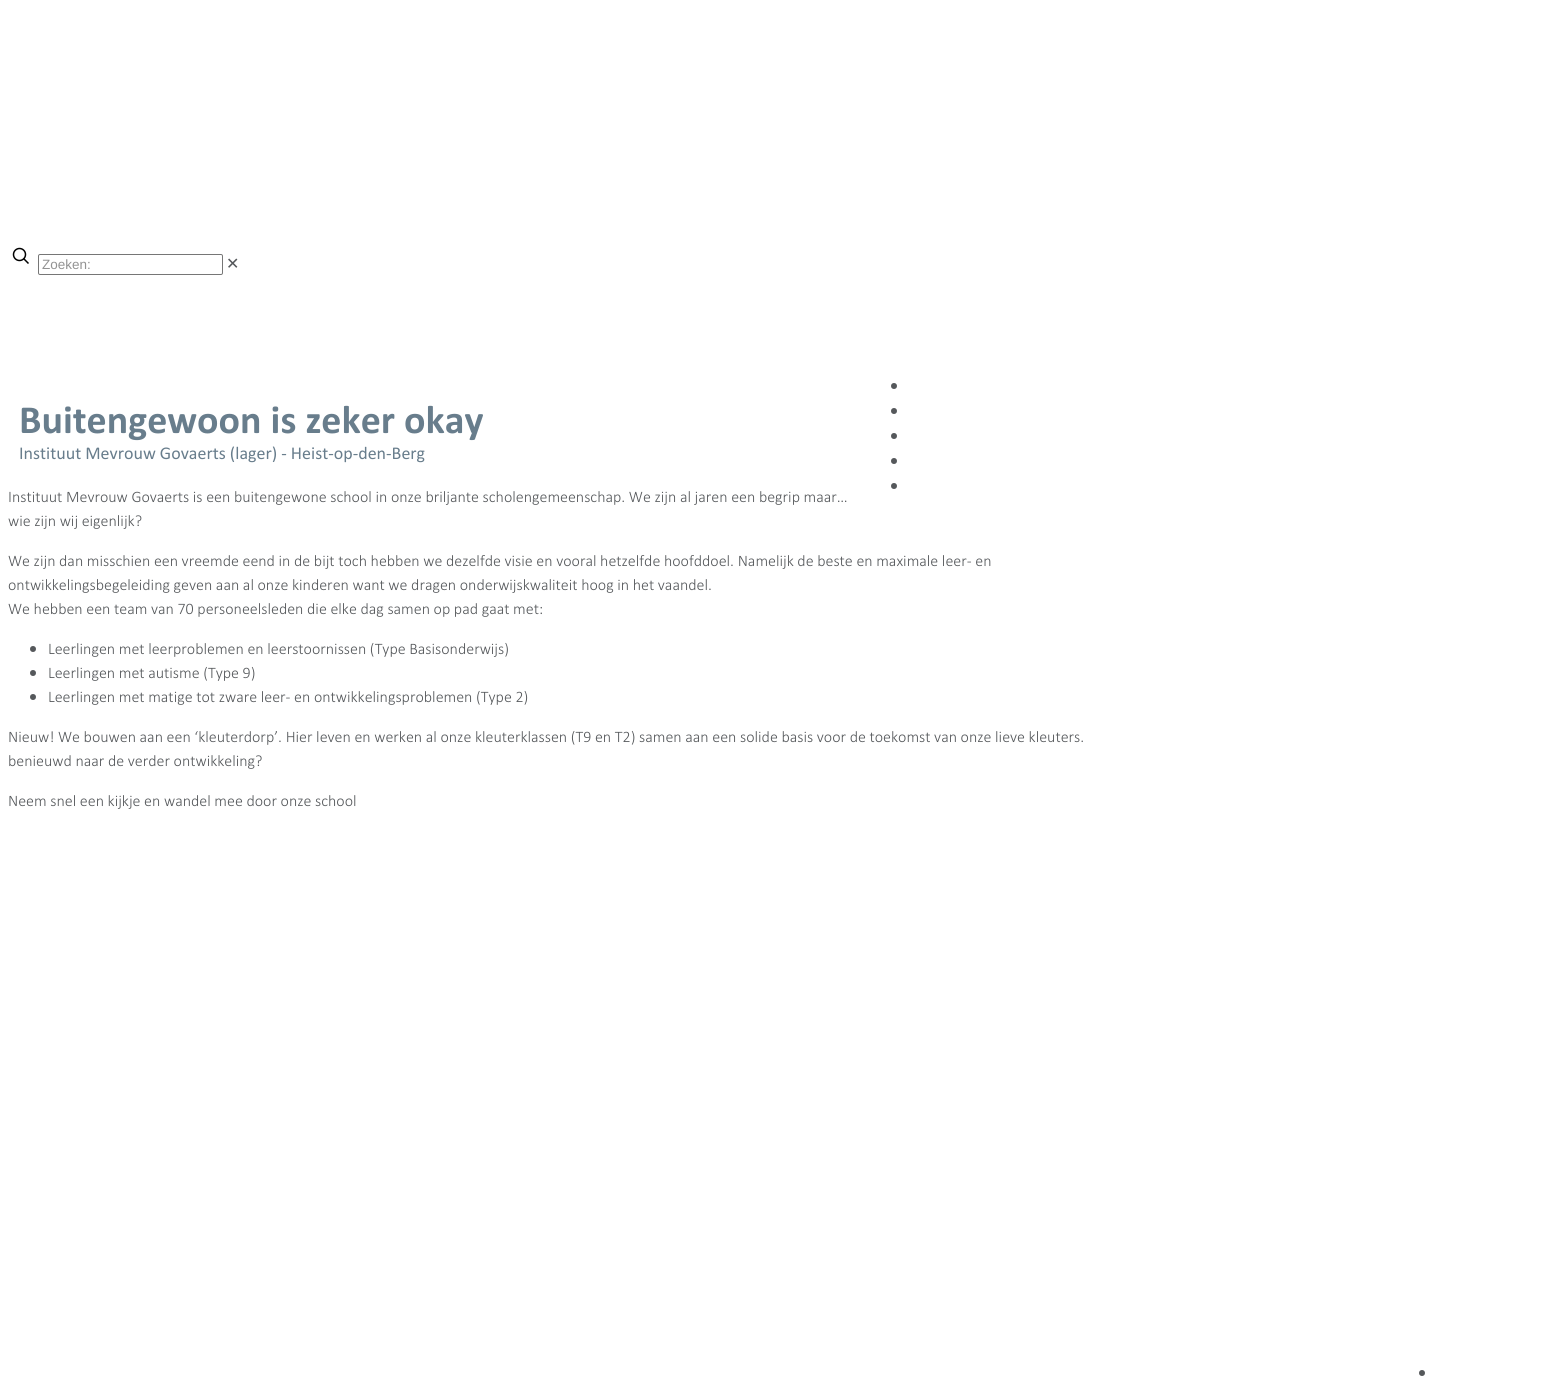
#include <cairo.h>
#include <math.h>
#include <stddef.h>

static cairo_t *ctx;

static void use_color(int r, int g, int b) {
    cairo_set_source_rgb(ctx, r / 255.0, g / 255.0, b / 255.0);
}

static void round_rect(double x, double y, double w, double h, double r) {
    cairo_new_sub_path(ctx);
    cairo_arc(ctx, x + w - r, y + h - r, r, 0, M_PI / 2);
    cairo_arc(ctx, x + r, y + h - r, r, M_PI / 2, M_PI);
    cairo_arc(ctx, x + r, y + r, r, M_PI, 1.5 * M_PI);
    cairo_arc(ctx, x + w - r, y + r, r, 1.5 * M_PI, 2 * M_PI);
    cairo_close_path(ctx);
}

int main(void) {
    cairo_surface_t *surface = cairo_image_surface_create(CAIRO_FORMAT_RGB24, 1564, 1384);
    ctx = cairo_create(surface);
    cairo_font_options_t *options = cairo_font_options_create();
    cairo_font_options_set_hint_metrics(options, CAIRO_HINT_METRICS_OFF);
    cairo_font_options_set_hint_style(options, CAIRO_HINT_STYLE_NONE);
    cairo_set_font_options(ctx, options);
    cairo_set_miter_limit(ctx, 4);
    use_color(255, 255, 255);
    cairo_paint(ctx);
    cairo_arc(ctx, 19.5, 254.5, 6, 0, 2 * M_PI);
    use_color(0, 0, 0);
    cairo_set_line_width(ctx, 1.5);
    cairo_stroke(ctx);
    cairo_new_path(ctx);
    cairo_move_to(ctx, 23.5, 258.5);
    cairo_line_to(ctx, 28.5, 263.5);
    cairo_stroke(ctx);
    round_rect(38.5, 254.5, 184, 20, 1.5);
    use_color(118, 118, 118);
    cairo_set_line_width(ctx, 1);
    cairo_stroke(ctx);
    cairo_select_font_face(ctx, "Liberation Sans", CAIRO_FONT_SLANT_NORMAL, CAIRO_FONT_WEIGHT_NORMAL);
    cairo_set_font_size(ctx, 13.5);
    use_color(146, 146, 146);
    cairo_move_to(ctx, 42, 269);
    cairo_show_text(ctx, "Zoeken:");
    cairo_select_font_face(ctx, "DejaVu Sans", CAIRO_FONT_SLANT_NORMAL, CAIRO_FONT_WEIGHT_NORMAL);
    cairo_set_font_size(ctx, 16);
    use_color(85, 88, 91);
    cairo_move_to(ctx, 226, 269);
    cairo_show_text(ctx, "✕");
    cairo_new_path(ctx);
    cairo_arc(ctx, 894, 386, 3, 0, 2 * M_PI);
    cairo_fill(ctx);
    cairo_arc(ctx, 894, 411, 3, 0, 2 * M_PI);
    cairo_fill(ctx);
    cairo_arc(ctx, 894, 436, 3, 0, 2 * M_PI);
    cairo_fill(ctx);
    cairo_arc(ctx, 894, 461, 3, 0, 2 * M_PI);
    cairo_fill(ctx);
    cairo_arc(ctx, 894, 486, 3, 0, 2 * M_PI);
    cairo_fill(ctx);
    cairo_arc(ctx, 1422, 1373, 3, 0, 2 * M_PI);
    cairo_fill(ctx);
    cairo_select_font_face(ctx, "Calibri", CAIRO_FONT_SLANT_NORMAL, CAIRO_FONT_WEIGHT_BOLD);
    cairo_set_font_size(ctx, 40);
    use_color(104, 125, 140);
    cairo_move_to(ctx, 19, 433);
    cairo_show_text(ctx, "Buitengewoon is zeker okay");
    cairo_select_font_face(ctx, "Calibri", CAIRO_FONT_SLANT_NORMAL, CAIRO_FONT_WEIGHT_NORMAL);
    cairo_set_font_size(ctx, 18);
    cairo_move_to(ctx, 19, 459);
    cairo_show_text(ctx, "Instituut Mevrouw Govaerts (lager) - Heist-op-den-Berg");
    cairo_select_font_face(ctx, "Calibri Light", CAIRO_FONT_SLANT_NORMAL, CAIRO_FONT_WEIGHT_NORMAL);
    cairo_set_font_size(ctx, 16);
    use_color(85, 88, 91);
    cairo_move_to(ctx, 8, 502);
    cairo_show_text(ctx, "Instituut Mevrouw Govaerts is een buitengewone school in onze briljante scholengemeenschap. We zijn al jaren een begrip maar…");
    cairo_move_to(ctx, 8, 526);
    cairo_show_text(ctx, "wie zijn wij eigenlijk?");
    cairo_move_to(ctx, 8, 566);
    cairo_show_text(ctx, "We zijn dan misschien een vreemde eend in de bijt toch hebben we dezelfde visie en vooral hetzelfde hoofddoel. Namelijk de beste en maximale leer- en");
    cairo_move_to(ctx, 8, 590);
    cairo_show_text(ctx, "ontwikkelingsbegeleiding geven aan al onze kinderen want we dragen onderwijskwaliteit hoog in het vaandel.");
    cairo_move_to(ctx, 8, 614);
    cairo_show_text(ctx, "We hebben een team van 70 personeelsleden die elke dag samen op pad gaat met:");
    cairo_new_path(ctx);
    cairo_arc(ctx, 33, 649, 3, 0, 2 * M_PI);
    cairo_fill(ctx);
    cairo_move_to(ctx, 48, 654);
    cairo_show_text(ctx, "Leerlingen met leerproblemen en leerstoornissen (Type Basisonderwijs)");
    cairo_new_path(ctx);
    cairo_arc(ctx, 33, 673, 3, 0, 2 * M_PI);
    cairo_fill(ctx);
    cairo_move_to(ctx, 48, 678);
    cairo_show_text(ctx, "Leerlingen met autisme (Type 9)");
    cairo_new_path(ctx);
    cairo_arc(ctx, 33, 697, 3, 0, 2 * M_PI);
    cairo_fill(ctx);
    cairo_move_to(ctx, 48, 702);
    cairo_show_text(ctx, "Leerlingen met matige tot zware leer- en ontwikkelingsproblemen (Type 2)");
    cairo_move_to(ctx, 8, 742);
    cairo_show_text(ctx, "Nieuw! We bouwen aan een ‘kleuterdorp’. Hier leven en werken al onze kleuterklassen (T9 en T2) samen aan een solide basis voor de toekomst van onze lieve kleuters.");
    cairo_move_to(ctx, 8, 766);
    cairo_show_text(ctx, "benieuwd naar de verder ontwikkeling?");
    cairo_move_to(ctx, 8, 806);
    cairo_show_text(ctx, "Neem snel een kijkje en wandel mee door onze school");
    cairo_surface_write_to_png(surface, "result.png");
    cairo_font_options_destroy(options);
    cairo_destroy(ctx);
    cairo_surface_destroy(surface);
    return 0;
}
